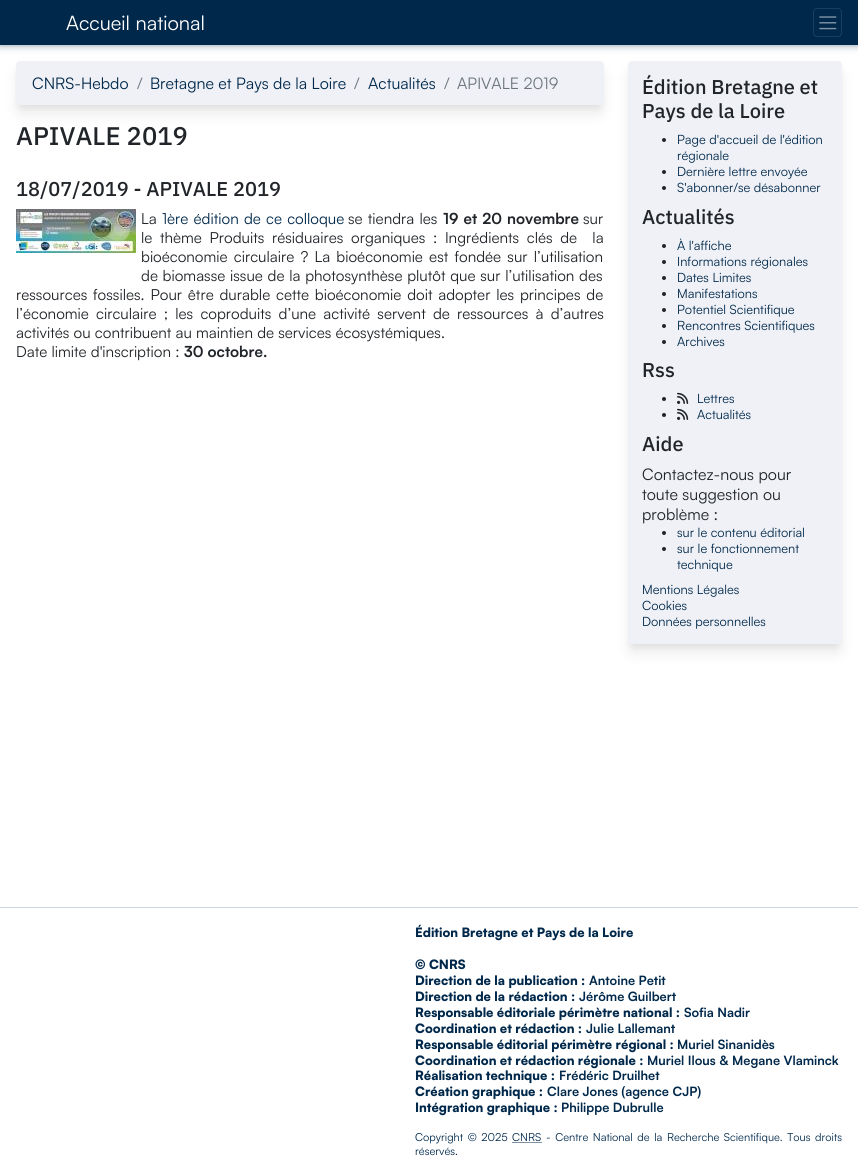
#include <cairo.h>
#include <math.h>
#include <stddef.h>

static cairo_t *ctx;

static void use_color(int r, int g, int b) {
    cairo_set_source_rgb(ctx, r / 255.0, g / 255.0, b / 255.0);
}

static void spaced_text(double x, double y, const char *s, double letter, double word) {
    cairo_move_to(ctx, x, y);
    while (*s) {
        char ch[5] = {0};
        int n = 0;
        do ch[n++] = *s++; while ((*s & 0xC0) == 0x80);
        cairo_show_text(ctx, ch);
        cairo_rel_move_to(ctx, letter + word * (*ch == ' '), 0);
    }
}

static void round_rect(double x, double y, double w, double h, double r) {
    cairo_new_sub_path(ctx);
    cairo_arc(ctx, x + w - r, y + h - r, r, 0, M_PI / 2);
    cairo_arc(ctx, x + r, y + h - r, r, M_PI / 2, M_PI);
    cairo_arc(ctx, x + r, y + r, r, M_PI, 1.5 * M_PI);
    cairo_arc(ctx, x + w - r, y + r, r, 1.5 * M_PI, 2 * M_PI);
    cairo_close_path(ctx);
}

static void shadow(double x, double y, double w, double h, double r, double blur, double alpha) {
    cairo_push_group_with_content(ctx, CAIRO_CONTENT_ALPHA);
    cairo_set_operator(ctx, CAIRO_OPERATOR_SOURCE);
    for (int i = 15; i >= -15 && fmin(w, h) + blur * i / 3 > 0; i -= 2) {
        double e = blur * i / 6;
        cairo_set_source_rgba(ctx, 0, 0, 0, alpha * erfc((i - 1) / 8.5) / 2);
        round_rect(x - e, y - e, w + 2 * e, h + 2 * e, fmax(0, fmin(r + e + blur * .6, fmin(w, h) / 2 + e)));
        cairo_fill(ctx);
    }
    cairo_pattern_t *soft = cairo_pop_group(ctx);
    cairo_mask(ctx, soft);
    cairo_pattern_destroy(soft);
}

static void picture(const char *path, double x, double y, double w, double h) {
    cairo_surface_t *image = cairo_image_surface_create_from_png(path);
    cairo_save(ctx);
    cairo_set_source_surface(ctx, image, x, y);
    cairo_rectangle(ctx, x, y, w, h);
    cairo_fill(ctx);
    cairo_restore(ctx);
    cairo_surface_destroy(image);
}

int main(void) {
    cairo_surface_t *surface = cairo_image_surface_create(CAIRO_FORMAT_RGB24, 858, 1175);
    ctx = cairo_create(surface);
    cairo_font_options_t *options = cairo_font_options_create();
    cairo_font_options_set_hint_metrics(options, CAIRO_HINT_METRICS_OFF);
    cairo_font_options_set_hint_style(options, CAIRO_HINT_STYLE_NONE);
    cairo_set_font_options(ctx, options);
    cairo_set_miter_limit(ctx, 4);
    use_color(255, 255, 255);
    cairo_paint(ctx);
    use_color(130, 150, 165);
    shadow(0, 0, 858, 45, 0, 4, 1);
    use_color(0, 40, 75);
    cairo_rectangle(ctx, 0, 0, 858, 45);
    cairo_fill(ctx);
    cairo_select_font_face(ctx, "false", CAIRO_FONT_SLANT_NORMAL, CAIRO_FONT_WEIGHT_NORMAL);
    cairo_set_font_size(ctx, 20);
    use_color(255, 255, 255);
    cairo_move_to(ctx, 66, 30);
    cairo_show_text(ctx, "Accueil national");
    round_rect(813.5, 8.5, 28, 28, 3.5);
    use_color(26, 62, 93);
    cairo_set_line_width(ctx, 1);
    cairo_stroke(ctx);
    picture("img1.png", 819, 16, 18, 14);
    use_color(0, 0, 0);
    shadow(18, 67, 584, 40, 2, 3, 0.05);
    shadow(19, 74, 582, 38, 1, 7.5, 0.1);
    use_color(239, 241, 246);
    round_rect(16, 61, 588, 44, 4);
    cairo_fill(ctx);
    cairo_set_font_size(ctx, 16);
    use_color(0, 40, 75);
    cairo_move_to(ctx, 32, 89);
    cairo_show_text(ctx, "CNRS-Hebdo");
    use_color(108, 117, 125);
    cairo_move_to(ctx, 137, 89);
    cairo_show_text(ctx, "/");
    use_color(0, 40, 75);
    cairo_move_to(ctx, 150, 89);
    cairo_show_text(ctx, "Bretagne et Pays de la Loire");
    use_color(108, 117, 125);
    cairo_move_to(ctx, 354, 89);
    cairo_show_text(ctx, "/");
    use_color(0, 40, 75);
    cairo_move_to(ctx, 368, 89);
    cairo_show_text(ctx, "Actualités");
    use_color(108, 117, 125);
    cairo_move_to(ctx, 444, 89);
    cairo_show_text(ctx, "/");
    cairo_move_to(ctx, 457, 89);
    cairo_show_text(ctx, "APIVALE 2019");
    cairo_select_font_face(ctx, "IBM Plex Sans Medium", CAIRO_FONT_SLANT_NORMAL, CAIRO_FONT_WEIGHT_NORMAL);
    cairo_set_font_size(ctx, 25.5);
    use_color(33, 37, 41);
    cairo_move_to(ctx, 16, 145);
    cairo_show_text(ctx, "APIVALE 2019");
    cairo_set_font_size(ctx, 20);
    cairo_move_to(ctx, 16, 196);
    cairo_show_text(ctx, "18/07/2019 - APIVALE 2019");
    picture("img2.png", 16, 209, 120, 44);
    cairo_select_font_face(ctx, "false", CAIRO_FONT_SLANT_NORMAL, CAIRO_FONT_WEIGHT_NORMAL);
    cairo_set_font_size(ctx, 15.2);
    cairo_move_to(ctx, 141, 224);
    cairo_show_text(ctx, "La");
    use_color(0, 40, 75);
    spaced_text(162, 224, "1ère édition de ce colloque", 0, 1);
    use_color(33, 37, 41);
    spaced_text(348, 224, "se tiendra les", 0, 1);
    cairo_select_font_face(ctx, "false", CAIRO_FONT_SLANT_NORMAL, CAIRO_FONT_WEIGHT_BOLD);
    spaced_text(443, 224, "19 et 20 novembre", 0, 1);
    cairo_select_font_face(ctx, "false", CAIRO_FONT_SLANT_NORMAL, CAIRO_FONT_WEIGHT_NORMAL);
    cairo_move_to(ctx, 583, 224);
    cairo_show_text(ctx, "sur");
    spaced_text(141, 243, "le thème Produits résiduaires organiques : Ingrédients clés de  la", 0, 3.4);
    spaced_text(141, 262, "bioéconomie circulaire ? La bioéconomie est fondée sur l’utilisation", 0, 2);
    spaced_text(141, 281, "de biomasse issue de la photosynthèse plutôt que sur l’utilisation des", 0, 0.5);
    spaced_text(16, 300, "ressources fossiles. Pour être durable cette bioéconomie doit adopter les principes de", 0, 1.6);
    spaced_text(16, 319, "l’économie circulaire ; les coproduits d’une activité servent de ressources à d’autres", 0, 3);
    cairo_move_to(ctx, 16, 338);
    cairo_show_text(ctx, "activités ou contribuent au maintien de services écosystémiques.");
    cairo_move_to(ctx, 16, 357);
    cairo_show_text(ctx, "Date limite d'inscription :");
    cairo_select_font_face(ctx, "false", CAIRO_FONT_SLANT_NORMAL, CAIRO_FONT_WEIGHT_BOLD);
    cairo_move_to(ctx, 184, 357);
    cairo_show_text(ctx, "30 octobre.");
    use_color(0, 0, 0);
    shadow(630, 67, 210, 579, 2, 3, 0.05);
    shadow(631, 74, 208, 577, 1, 7.5, 0.1);
    use_color(239, 241, 246);
    round_rect(628, 61, 214, 583, 4);
    cairo_fill(ctx);
    cairo_select_font_face(ctx, "IBM Plex Sans Medium", CAIRO_FONT_SLANT_NORMAL, CAIRO_FONT_WEIGHT_NORMAL);
    cairo_set_font_size(ctx, 20);
    use_color(33, 37, 41);
    cairo_move_to(ctx, 642, 94);
    cairo_show_text(ctx, "Édition Bretagne et");
    cairo_move_to(ctx, 642, 118);
    cairo_show_text(ctx, "Pays de la Loire");
    cairo_new_path(ctx);
    cairo_arc(ctx, 664, 140, 2, 0, 2 * M_PI);
    cairo_fill(ctx);
    cairo_select_font_face(ctx, "false", CAIRO_FONT_SLANT_NORMAL, CAIRO_FONT_WEIGHT_NORMAL);
    cairo_set_font_size(ctx, 12.8);
    use_color(0, 40, 75);
    cairo_move_to(ctx, 677, 144);
    cairo_show_text(ctx, "Page d'accueil de l'édition");
    cairo_move_to(ctx, 677, 160);
    cairo_show_text(ctx, "régionale");
    use_color(33, 37, 41);
    cairo_new_path(ctx);
    cairo_arc(ctx, 664, 172, 2, 0, 2 * M_PI);
    cairo_fill(ctx);
    use_color(0, 40, 75);
    cairo_move_to(ctx, 677, 176);
    cairo_show_text(ctx, "Dernière lettre envoyée");
    use_color(33, 37, 41);
    cairo_new_path(ctx);
    cairo_arc(ctx, 664, 188, 2, 0, 2 * M_PI);
    cairo_fill(ctx);
    use_color(0, 40, 75);
    cairo_move_to(ctx, 677, 192);
    cairo_show_text(ctx, "S'abonner/se désabonner");
    cairo_select_font_face(ctx, "IBM Plex Sans Medium", CAIRO_FONT_SLANT_NORMAL, CAIRO_FONT_WEIGHT_NORMAL);
    cairo_set_font_size(ctx, 20);
    use_color(33, 37, 41);
    cairo_move_to(ctx, 642, 224);
    cairo_show_text(ctx, "Actualités");
    cairo_new_path(ctx);
    cairo_arc(ctx, 664, 246, 2, 0, 2 * M_PI);
    cairo_fill(ctx);
    cairo_select_font_face(ctx, "false", CAIRO_FONT_SLANT_NORMAL, CAIRO_FONT_WEIGHT_NORMAL);
    cairo_set_font_size(ctx, 12.8);
    use_color(0, 40, 75);
    cairo_move_to(ctx, 677, 250);
    cairo_show_text(ctx, "À l'affiche");
    use_color(33, 37, 41);
    cairo_new_path(ctx);
    cairo_arc(ctx, 664, 262, 2, 0, 2 * M_PI);
    cairo_fill(ctx);
    use_color(0, 40, 75);
    cairo_move_to(ctx, 677, 266);
    cairo_show_text(ctx, "Informations régionales");
    use_color(33, 37, 41);
    cairo_new_path(ctx);
    cairo_arc(ctx, 664, 278, 2, 0, 2 * M_PI);
    cairo_fill(ctx);
    use_color(0, 40, 75);
    cairo_move_to(ctx, 677, 282);
    cairo_show_text(ctx, "Dates Limites");
    use_color(33, 37, 41);
    cairo_new_path(ctx);
    cairo_arc(ctx, 664, 294, 2, 0, 2 * M_PI);
    cairo_fill(ctx);
    use_color(0, 40, 75);
    cairo_move_to(ctx, 677, 298);
    cairo_show_text(ctx, "Manifestations");
    use_color(33, 37, 41);
    cairo_new_path(ctx);
    cairo_arc(ctx, 664, 310, 2, 0, 2 * M_PI);
    cairo_fill(ctx);
    use_color(0, 40, 75);
    cairo_move_to(ctx, 677, 314);
    cairo_show_text(ctx, "Potentiel Scientifique");
    use_color(33, 37, 41);
    cairo_new_path(ctx);
    cairo_arc(ctx, 664, 326, 2, 0, 2 * M_PI);
    cairo_fill(ctx);
    use_color(0, 40, 75);
    cairo_move_to(ctx, 677, 330);
    cairo_show_text(ctx, "Rencontres Scientifiques");
    use_color(33, 37, 41);
    cairo_new_path(ctx);
    cairo_arc(ctx, 664, 342, 2, 0, 2 * M_PI);
    cairo_fill(ctx);
    use_color(0, 40, 75);
    cairo_move_to(ctx, 677, 346);
    cairo_show_text(ctx, "Archives");
    cairo_select_font_face(ctx, "IBM Plex Sans Medium", CAIRO_FONT_SLANT_NORMAL, CAIRO_FONT_WEIGHT_NORMAL);
    cairo_set_font_size(ctx, 20);
    use_color(33, 37, 41);
    cairo_move_to(ctx, 642, 377);
    cairo_show_text(ctx, "Rss");
    cairo_new_path(ctx);
    cairo_arc(ctx, 664, 399, 2, 0, 2 * M_PI);
    cairo_fill(ctx);
    picture("img3.png", 677, 392, 12, 12);
    cairo_select_font_face(ctx, "false", CAIRO_FONT_SLANT_NORMAL, CAIRO_FONT_WEIGHT_NORMAL);
    cairo_set_font_size(ctx, 12.8);
    use_color(0, 40, 75);
    cairo_move_to(ctx, 697, 403);
    cairo_show_text(ctx, "Lettres");
    use_color(33, 37, 41);
    cairo_new_path(ctx);
    cairo_arc(ctx, 664, 415, 2, 0, 2 * M_PI);
    cairo_fill(ctx);
    picture("img3.png", 677, 408, 12, 12);
    use_color(0, 40, 75);
    cairo_move_to(ctx, 697, 419);
    cairo_show_text(ctx, "Actualités");
    cairo_select_font_face(ctx, "IBM Plex Sans Medium", CAIRO_FONT_SLANT_NORMAL, CAIRO_FONT_WEIGHT_NORMAL);
    cairo_set_font_size(ctx, 20);
    use_color(33, 37, 41);
    cairo_move_to(ctx, 642, 451);
    cairo_show_text(ctx, "Aide");
    cairo_select_font_face(ctx, "false", CAIRO_FONT_SLANT_NORMAL, CAIRO_FONT_WEIGHT_NORMAL);
    cairo_set_font_size(ctx, 16);
    cairo_move_to(ctx, 642, 480);
    cairo_show_text(ctx, "Contactez-nous pour");
    cairo_move_to(ctx, 642, 500);
    cairo_show_text(ctx, "toute suggestion ou");
    cairo_move_to(ctx, 642, 520);
    cairo_show_text(ctx, "problème :");
    cairo_new_path(ctx);
    cairo_arc(ctx, 664, 533, 2, 0, 2 * M_PI);
    cairo_fill(ctx);
    cairo_set_font_size(ctx, 12.8);
    use_color(0, 40, 75);
    cairo_move_to(ctx, 677, 537);
    cairo_show_text(ctx, "sur le contenu éditorial");
    use_color(33, 37, 41);
    cairo_new_path(ctx);
    cairo_arc(ctx, 664, 549, 2, 0, 2 * M_PI);
    cairo_fill(ctx);
    use_color(0, 40, 75);
    cairo_move_to(ctx, 677, 553);
    cairo_show_text(ctx, "sur le fonctionnement");
    cairo_move_to(ctx, 677, 569);
    cairo_show_text(ctx, "technique");
    cairo_move_to(ctx, 642, 594);
    cairo_show_text(ctx, "Mentions Légales");
    cairo_move_to(ctx, 642, 610);
    cairo_show_text(ctx, "Cookies");
    cairo_move_to(ctx, 642, 626);
    cairo_show_text(ctx, "Données personnelles");
    use_color(204, 214, 219);
    cairo_rectangle(ctx, 0, 907, 858, 1);
    cairo_fill(ctx);
    cairo_select_font_face(ctx, "Satoshi Black", CAIRO_FONT_SLANT_NORMAL, CAIRO_FONT_WEIGHT_NORMAL);
    use_color(0, 40, 75);
    cairo_move_to(ctx, 415, 937);
    cairo_show_text(ctx, "Édition Bretagne et Pays de la Loire");
    cairo_move_to(ctx, 415, 969);
    cairo_show_text(ctx, "© CNRS");
    cairo_move_to(ctx, 415, 985);
    cairo_show_text(ctx, "Direction de la publication :");
    cairo_select_font_face(ctx, "false", CAIRO_FONT_SLANT_NORMAL, CAIRO_FONT_WEIGHT_BOLD);
    cairo_move_to(ctx, 589, 985);
    cairo_show_text(ctx, "Antoine Petit");
    cairo_select_font_face(ctx, "Satoshi Black", CAIRO_FONT_SLANT_NORMAL, CAIRO_FONT_WEIGHT_NORMAL);
    cairo_move_to(ctx, 415, 1001);
    cairo_show_text(ctx, "Direction de la rédaction :");
    cairo_select_font_face(ctx, "false", CAIRO_FONT_SLANT_NORMAL, CAIRO_FONT_WEIGHT_BOLD);
    cairo_move_to(ctx, 579, 1001);
    cairo_show_text(ctx, "Jérôme Guilbert");
    cairo_select_font_face(ctx, "Satoshi Black", CAIRO_FONT_SLANT_NORMAL, CAIRO_FONT_WEIGHT_NORMAL);
    cairo_move_to(ctx, 415, 1017);
    cairo_show_text(ctx, "Responsable éditoriale périmètre national :");
    cairo_select_font_face(ctx, "false", CAIRO_FONT_SLANT_NORMAL, CAIRO_FONT_WEIGHT_BOLD);
    cairo_move_to(ctx, 684, 1017);
    cairo_show_text(ctx, "Sofia Nadir");
    cairo_select_font_face(ctx, "Satoshi Black", CAIRO_FONT_SLANT_NORMAL, CAIRO_FONT_WEIGHT_NORMAL);
    cairo_move_to(ctx, 415, 1033);
    cairo_show_text(ctx, "Coordination et rédaction :");
    cairo_select_font_face(ctx, "false", CAIRO_FONT_SLANT_NORMAL, CAIRO_FONT_WEIGHT_BOLD);
    cairo_move_to(ctx, 586, 1033);
    cairo_show_text(ctx, "Julie Lallemant");
    cairo_select_font_face(ctx, "Satoshi Black", CAIRO_FONT_SLANT_NORMAL, CAIRO_FONT_WEIGHT_NORMAL);
    cairo_move_to(ctx, 415, 1049);
    cairo_show_text(ctx, "Responsable éditorial périmètre régional :");
    cairo_select_font_face(ctx, "false", CAIRO_FONT_SLANT_NORMAL, CAIRO_FONT_WEIGHT_BOLD);
    cairo_move_to(ctx, 677, 1049);
    cairo_show_text(ctx, "Muriel Sinanidès");
    cairo_select_font_face(ctx, "Satoshi Black", CAIRO_FONT_SLANT_NORMAL, CAIRO_FONT_WEIGHT_NORMAL);
    cairo_move_to(ctx, 415, 1065);
    cairo_show_text(ctx, "Coordination et rédaction régionale :");
    cairo_select_font_face(ctx, "false", CAIRO_FONT_SLANT_NORMAL, CAIRO_FONT_WEIGHT_BOLD);
    cairo_move_to(ctx, 647, 1065);
    cairo_show_text(ctx, "Muriel Ilous & Megane Vlaminck");
    cairo_select_font_face(ctx, "Satoshi Black", CAIRO_FONT_SLANT_NORMAL, CAIRO_FONT_WEIGHT_NORMAL);
    cairo_move_to(ctx, 415, 1080);
    cairo_show_text(ctx, "Réalisation technique :");
    cairo_select_font_face(ctx, "false", CAIRO_FONT_SLANT_NORMAL, CAIRO_FONT_WEIGHT_BOLD);
    cairo_move_to(ctx, 559, 1080);
    cairo_show_text(ctx, "Frédéric Druilhet");
    cairo_select_font_face(ctx, "Satoshi Black", CAIRO_FONT_SLANT_NORMAL, CAIRO_FONT_WEIGHT_NORMAL);
    cairo_move_to(ctx, 415, 1096);
    cairo_show_text(ctx, "Création graphique :");
    cairo_select_font_face(ctx, "false", CAIRO_FONT_SLANT_NORMAL, CAIRO_FONT_WEIGHT_BOLD);
    cairo_move_to(ctx, 547, 1096);
    cairo_show_text(ctx, "Clare Jones (agence CJP)");
    cairo_select_font_face(ctx, "Satoshi Black", CAIRO_FONT_SLANT_NORMAL, CAIRO_FONT_WEIGHT_NORMAL);
    cairo_move_to(ctx, 415, 1112);
    cairo_show_text(ctx, "Intégration graphique :");
    cairo_select_font_face(ctx, "false", CAIRO_FONT_SLANT_NORMAL, CAIRO_FONT_WEIGHT_BOLD);
    cairo_move_to(ctx, 561, 1112);
    cairo_show_text(ctx, "Philippe Dubrulle");
    cairo_select_font_face(ctx, "false", CAIRO_FONT_SLANT_NORMAL, CAIRO_FONT_WEIGHT_NORMAL);
    cairo_set_font_size(ctx, 11.05);
    spaced_text(415, 1141, "Copyright © 2025", 0, 1.5);
    cairo_move_to(ctx, 512, 1141);
    cairo_show_text(ctx, "CNRS");
    cairo_new_path(ctx);
    cairo_move_to(ctx, 512.5, 1142.5);
    cairo_line_to(ctx, 541.5, 1142.5);
    cairo_set_dash(ctx, (double[]){1, 1}, 2, 0);
    cairo_stroke(ctx);
    spaced_text(546, 1141, "- Centre National de la Recherche Scientifique. Tous droits", 0, 1.5);
    cairo_move_to(ctx, 415, 1155);
    cairo_show_text(ctx, "réservés.");
    cairo_surface_write_to_png(surface, "result.png");
    cairo_font_options_destroy(options);
    cairo_destroy(ctx);
    cairo_surface_destroy(surface);
    return 0;
}
